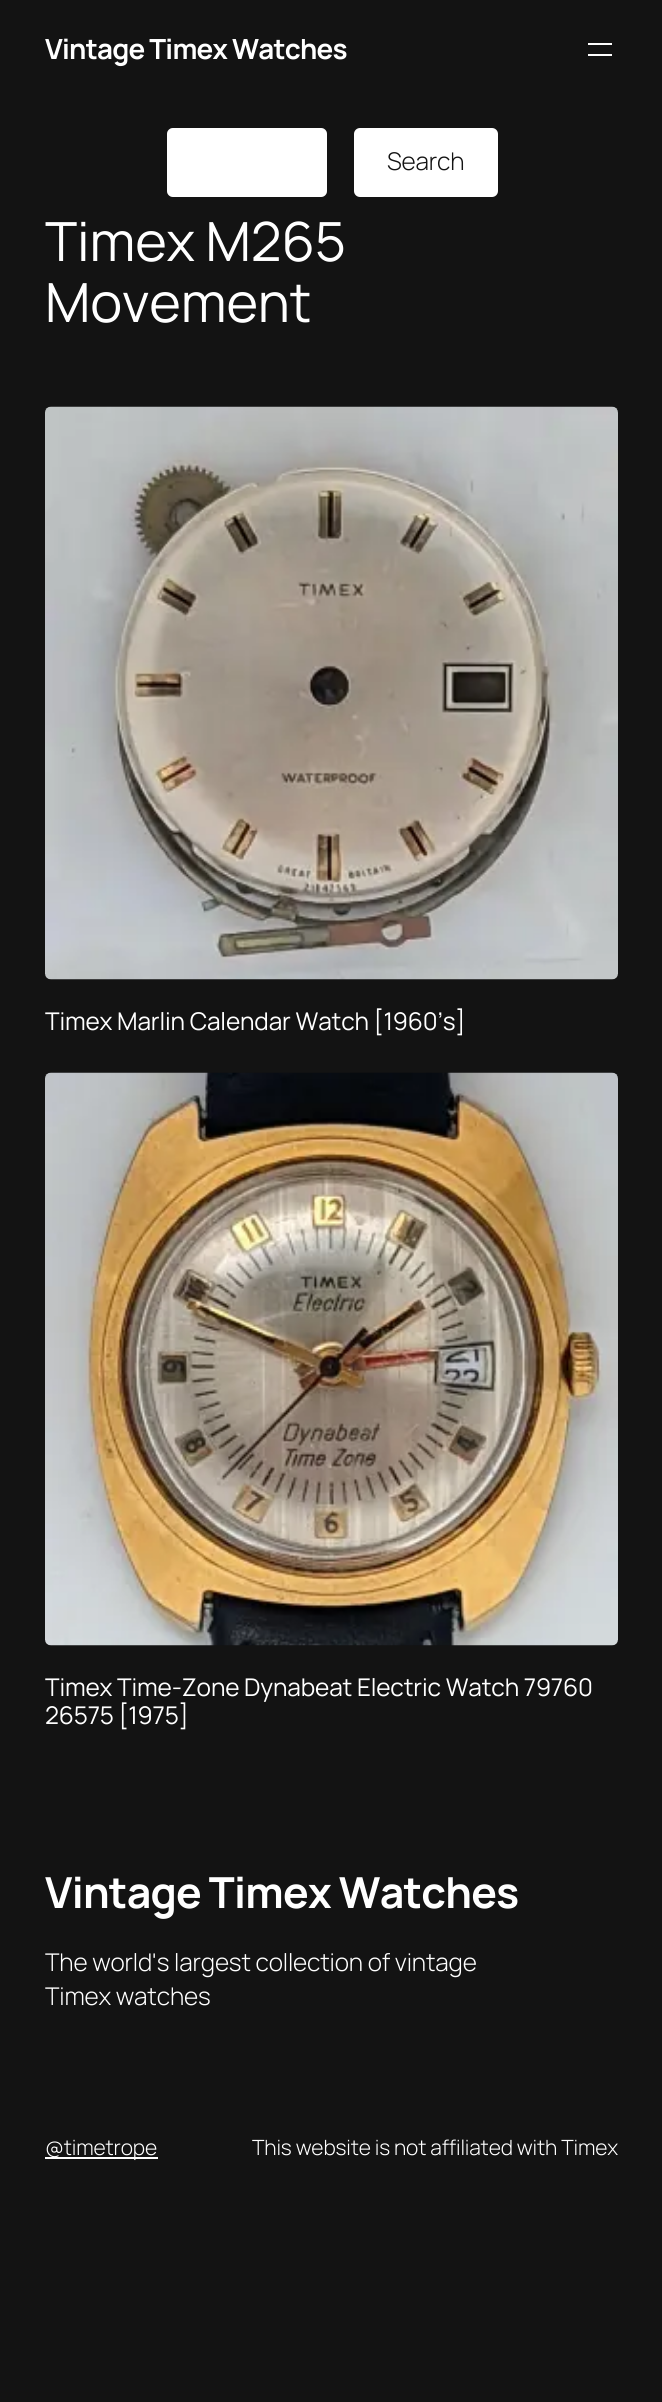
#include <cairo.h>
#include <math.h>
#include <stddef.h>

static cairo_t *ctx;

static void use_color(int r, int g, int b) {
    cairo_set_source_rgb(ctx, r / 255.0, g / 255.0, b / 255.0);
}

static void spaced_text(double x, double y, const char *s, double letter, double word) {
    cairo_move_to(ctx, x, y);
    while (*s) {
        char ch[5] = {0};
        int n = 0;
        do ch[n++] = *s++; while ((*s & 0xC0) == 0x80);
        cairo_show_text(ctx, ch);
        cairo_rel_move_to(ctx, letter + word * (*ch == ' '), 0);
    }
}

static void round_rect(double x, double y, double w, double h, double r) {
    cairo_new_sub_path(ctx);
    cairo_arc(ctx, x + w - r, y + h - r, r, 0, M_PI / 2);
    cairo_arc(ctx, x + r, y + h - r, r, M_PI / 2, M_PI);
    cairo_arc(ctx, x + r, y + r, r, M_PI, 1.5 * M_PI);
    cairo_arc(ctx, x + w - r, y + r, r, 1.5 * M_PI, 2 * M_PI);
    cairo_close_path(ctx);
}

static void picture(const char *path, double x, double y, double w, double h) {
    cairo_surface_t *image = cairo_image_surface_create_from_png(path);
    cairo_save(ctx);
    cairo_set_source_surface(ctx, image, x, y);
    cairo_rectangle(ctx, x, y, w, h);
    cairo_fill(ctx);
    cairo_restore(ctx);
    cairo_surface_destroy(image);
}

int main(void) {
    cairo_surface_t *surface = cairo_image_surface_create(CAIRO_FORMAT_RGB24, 662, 2402);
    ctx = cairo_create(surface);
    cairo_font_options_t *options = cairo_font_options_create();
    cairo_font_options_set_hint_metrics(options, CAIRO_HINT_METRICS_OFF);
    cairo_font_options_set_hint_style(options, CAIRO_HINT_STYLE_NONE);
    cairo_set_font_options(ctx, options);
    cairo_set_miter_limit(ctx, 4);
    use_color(19, 19, 19);
    cairo_paint(ctx);
    cairo_select_font_face(ctx, "Manrope", CAIRO_FONT_SLANT_NORMAL, CAIRO_FONT_WEIGHT_BOLD);
    cairo_set_font_size(ctx, 27.75);
    use_color(255, 255, 255);
    spaced_text(45, 59, "Vintage Timex Watches", -0.75, 0);
    cairo_rectangle(ctx, 588, 43, 24, 2);
    cairo_fill(ctx);
    cairo_rectangle(ctx, 588, 54, 24, 2);
    cairo_fill(ctx);
    round_rect(167, 128, 160, 69, 6);
    cairo_fill(ctx);
    round_rect(168, 129, 158, 67, 5);
    cairo_set_source_rgba(ctx, 1, 1, 1, 0.2);
    cairo_stroke(ctx);
    use_color(255, 255, 255);
    round_rect(354, 128, 144, 69, 6);
    cairo_fill(ctx);
    cairo_select_font_face(ctx, "Manrope Light", CAIRO_FONT_SLANT_NORMAL, CAIRO_FONT_WEIGHT_NORMAL);
    cairo_set_font_size(ctx, 24.4);
    use_color(19, 19, 19);
    spaced_text(387, 170, "Search", -0.15, 0);
    cairo_select_font_face(ctx, "Manrope", CAIRO_FONT_SLANT_NORMAL, CAIRO_FONT_WEIGHT_NORMAL);
    cairo_set_font_size(ctx, 54);
    use_color(255, 255, 255);
    spaced_text(45, 261, "Timex M265", -0.15, 0);
    spaced_text(45, 322, "Movement", -0.15, 0);
    picture("img1.png", 45, 406, 573, 574);
    cairo_set_font_size(ctx, 24.4);
    spaced_text(45, 1030, "Timex Marlin Calendar Watch [1960’s]", -0.15, 0);
    picture("img2.png", 45, 1072, 573, 574);
    spaced_text(45, 1696, "Timex Time-Zone Dynabeat Electric Watch 79760", -0.15, 0);
    spaced_text(45, 1724, "26575 [1975]", -0.15, 0);
    cairo_select_font_face(ctx, "Manrope", CAIRO_FONT_SLANT_NORMAL, CAIRO_FONT_WEIGHT_BOLD);
    cairo_set_font_size(ctx, 42.75);
    spaced_text(45, 1908, "Vintage Timex Watches", -0.75, 0);
    cairo_select_font_face(ctx, "Manrope Light", CAIRO_FONT_SLANT_NORMAL, CAIRO_FONT_WEIGHT_NORMAL);
    cairo_set_font_size(ctx, 24.4);
    spaced_text(45, 1971, "The world's largest collection of vintage", -0.15, 0);
    spaced_text(45, 2005, "Timex watches", -0.15, 0);
    cairo_rectangle(ctx, 45, 2157, 113, 2);
    cairo_fill(ctx);
    cairo_set_font_size(ctx, 21);
    spaced_text(45, 2155, "@timetrope", -0.15, 0);
    spaced_text(252, 2155, "This website is not affiliated with Timex", -0.15, 0);
    cairo_surface_write_to_png(surface, "result.png");
    cairo_font_options_destroy(options);
    cairo_destroy(ctx);
    cairo_surface_destroy(surface);
    return 0;
}
